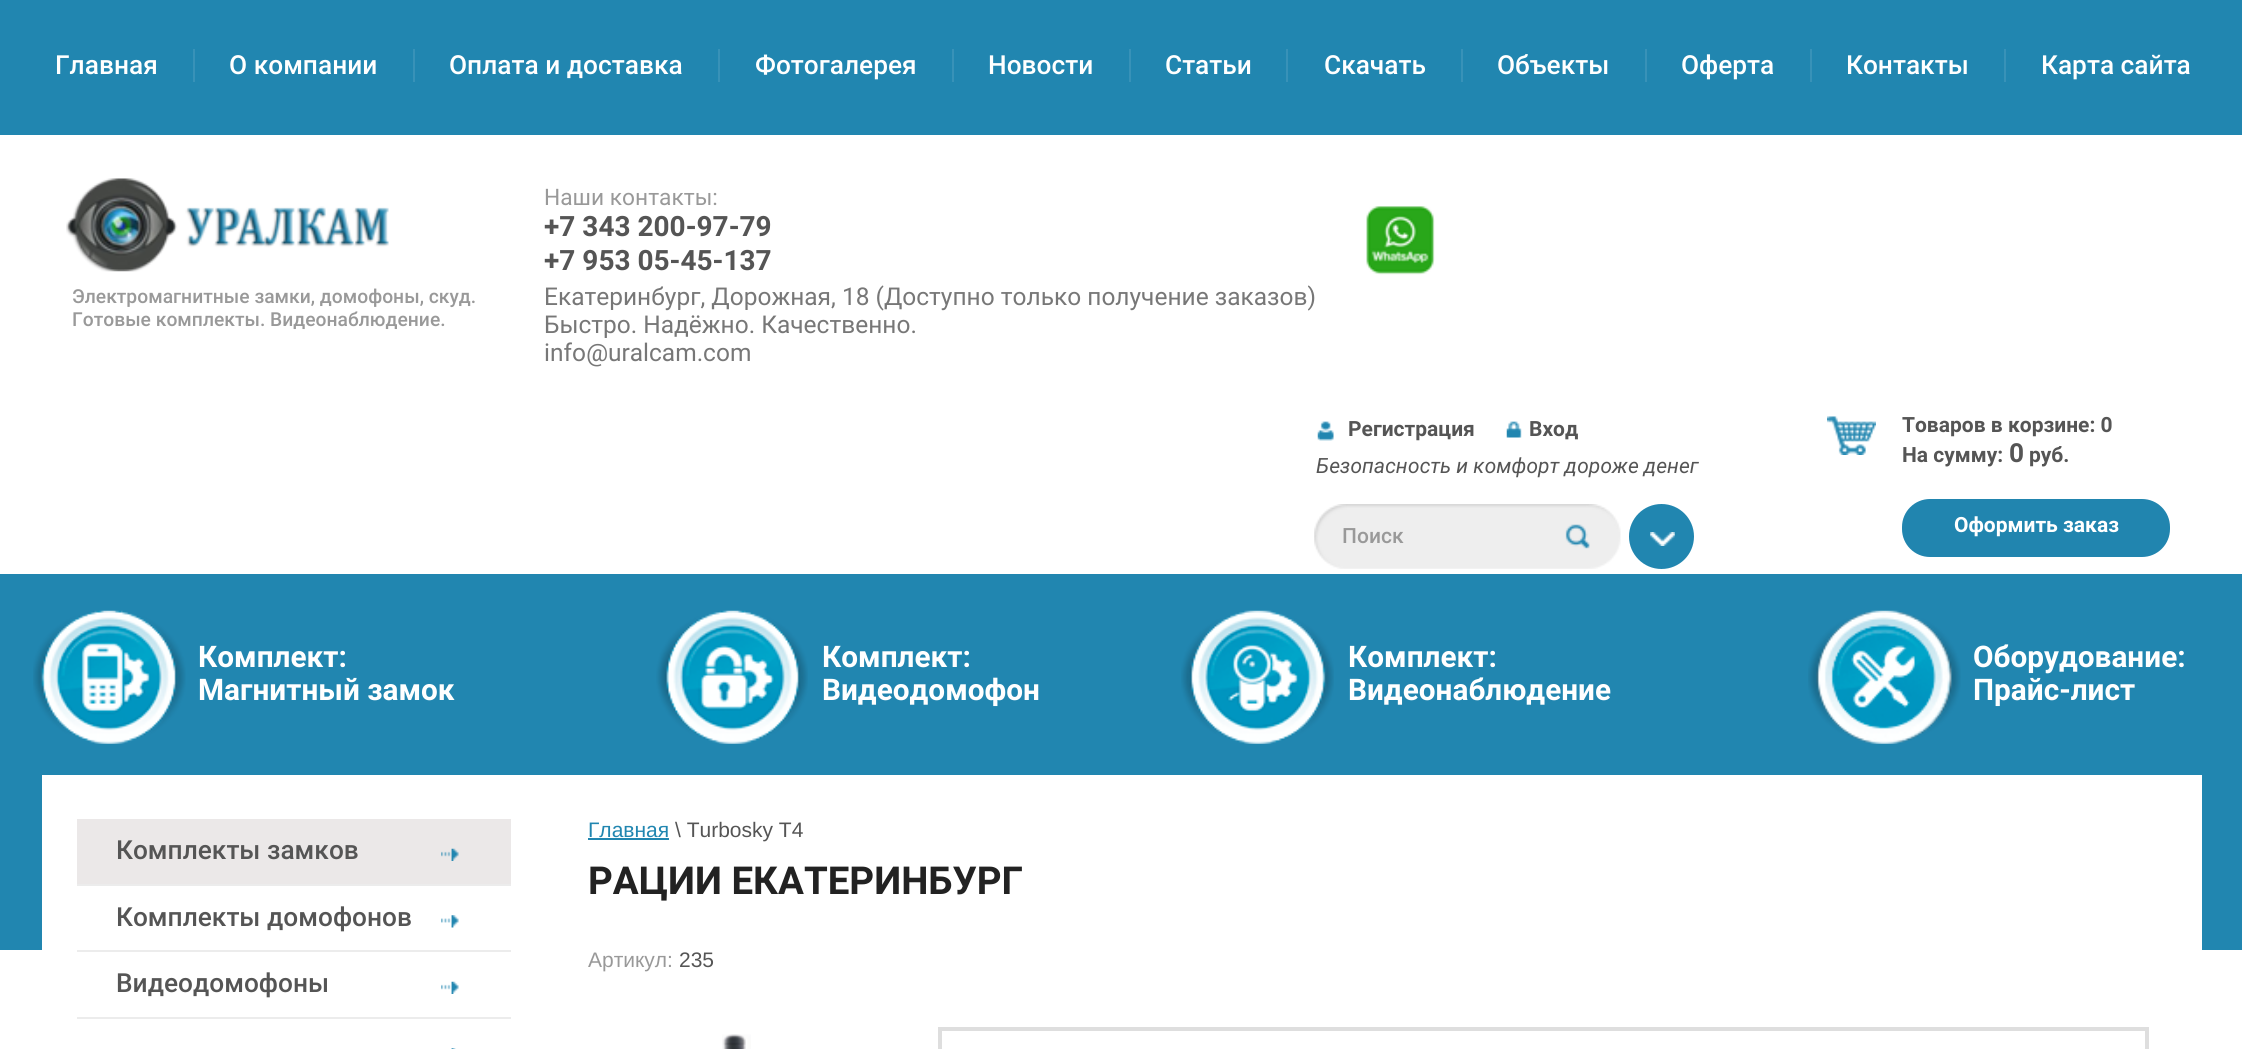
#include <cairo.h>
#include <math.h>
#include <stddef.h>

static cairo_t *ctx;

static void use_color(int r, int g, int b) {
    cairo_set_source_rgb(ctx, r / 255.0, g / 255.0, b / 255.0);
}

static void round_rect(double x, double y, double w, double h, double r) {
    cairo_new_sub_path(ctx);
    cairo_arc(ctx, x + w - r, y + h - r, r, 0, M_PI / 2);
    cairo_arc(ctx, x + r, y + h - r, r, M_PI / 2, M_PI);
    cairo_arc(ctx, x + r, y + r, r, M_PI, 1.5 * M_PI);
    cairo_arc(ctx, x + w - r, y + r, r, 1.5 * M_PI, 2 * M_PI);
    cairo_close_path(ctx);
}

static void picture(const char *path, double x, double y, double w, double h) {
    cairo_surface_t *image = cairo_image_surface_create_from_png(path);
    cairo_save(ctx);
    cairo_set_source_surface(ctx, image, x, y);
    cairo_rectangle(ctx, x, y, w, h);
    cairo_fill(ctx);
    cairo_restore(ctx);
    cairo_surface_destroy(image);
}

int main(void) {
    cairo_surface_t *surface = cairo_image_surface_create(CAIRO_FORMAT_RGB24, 2242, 1049);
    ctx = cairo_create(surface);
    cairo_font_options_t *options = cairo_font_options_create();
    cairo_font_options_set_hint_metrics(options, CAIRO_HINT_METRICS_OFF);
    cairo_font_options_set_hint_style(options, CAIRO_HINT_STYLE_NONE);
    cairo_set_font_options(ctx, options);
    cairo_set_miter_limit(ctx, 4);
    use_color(255, 255, 255);
    cairo_paint(ctx);
    use_color(33, 134, 176);
    cairo_rectangle(ctx, 0, 0, 2242, 135);
    cairo_fill(ctx);
    cairo_select_font_face(ctx, "Roboto Medium", CAIRO_FONT_SLANT_NORMAL, CAIRO_FONT_WEIGHT_NORMAL);
    cairo_set_font_size(ctx, 26.25);
    use_color(255, 255, 255);
    cairo_move_to(ctx, 55, 74);
    cairo_show_text(ctx, "Главная");
    use_color(56, 146, 184);
    cairo_rectangle(ctx, 193, 49, 2, 33);
    cairo_fill(ctx);
    use_color(255, 255, 255);
    cairo_move_to(ctx, 229, 74);
    cairo_show_text(ctx, "О компании");
    use_color(56, 146, 184);
    cairo_rectangle(ctx, 413, 49, 2, 33);
    cairo_fill(ctx);
    use_color(255, 255, 255);
    cairo_move_to(ctx, 449, 74);
    cairo_show_text(ctx, "Оплата и доставка");
    use_color(56, 146, 184);
    cairo_rectangle(ctx, 718, 49, 2, 33);
    cairo_fill(ctx);
    use_color(255, 255, 255);
    cairo_move_to(ctx, 755, 74);
    cairo_show_text(ctx, "Фотогалерея");
    use_color(56, 146, 184);
    cairo_rectangle(ctx, 952, 49, 2, 33);
    cairo_fill(ctx);
    use_color(255, 255, 255);
    cairo_move_to(ctx, 988, 74);
    cairo_show_text(ctx, "Новости");
    use_color(56, 146, 184);
    cairo_rectangle(ctx, 1129, 49, 2, 33);
    cairo_fill(ctx);
    use_color(255, 255, 255);
    cairo_move_to(ctx, 1165, 74);
    cairo_show_text(ctx, "Статьи");
    use_color(56, 146, 184);
    cairo_rectangle(ctx, 1286, 49, 2, 33);
    cairo_fill(ctx);
    use_color(255, 255, 255);
    cairo_move_to(ctx, 1324, 74);
    cairo_show_text(ctx, "Скачать");
    use_color(56, 146, 184);
    cairo_rectangle(ctx, 1461, 49, 2, 33);
    cairo_fill(ctx);
    use_color(255, 255, 255);
    cairo_move_to(ctx, 1497, 74);
    cairo_show_text(ctx, "Объекты");
    use_color(56, 146, 184);
    cairo_rectangle(ctx, 1645, 49, 2, 33);
    cairo_fill(ctx);
    use_color(255, 255, 255);
    cairo_move_to(ctx, 1681, 74);
    cairo_show_text(ctx, "Оферта");
    use_color(56, 146, 184);
    cairo_rectangle(ctx, 1810, 49, 2, 33);
    cairo_fill(ctx);
    use_color(255, 255, 255);
    cairo_move_to(ctx, 1846, 74);
    cairo_show_text(ctx, "Контакты");
    use_color(56, 146, 184);
    cairo_rectangle(ctx, 2004, 49, 2, 33);
    cairo_fill(ctx);
    use_color(255, 255, 255);
    cairo_move_to(ctx, 2041, 74);
    cairo_show_text(ctx, "Карта сайта");
    cairo_select_font_face(ctx, "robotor", CAIRO_FONT_SLANT_NORMAL, CAIRO_FONT_WEIGHT_NORMAL);
    cairo_set_font_size(ctx, 22.75);
    use_color(153, 153, 153);
    cairo_move_to(ctx, 544, 205);
    cairo_show_text(ctx, "Наши контакты:");
    cairo_select_font_face(ctx, "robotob", CAIRO_FONT_SLANT_NORMAL, CAIRO_FONT_WEIGHT_BOLD);
    cairo_set_font_size(ctx, 28);
    use_color(85, 85, 85);
    cairo_move_to(ctx, 544, 236);
    cairo_show_text(ctx, "+7 343 200-97-79");
    cairo_move_to(ctx, 544, 270);
    cairo_show_text(ctx, "+7 953 05-45-137");
    cairo_select_font_face(ctx, "robotor", CAIRO_FONT_SLANT_NORMAL, CAIRO_FONT_WEIGHT_NORMAL);
    cairo_set_font_size(ctx, 24.5);
    use_color(119, 119, 119);
    cairo_move_to(ctx, 544, 305);
    cairo_show_text(ctx, "Екатеринбург, Дорожная, 18 (Доступно только получение заказов)");
    cairo_move_to(ctx, 544, 333);
    cairo_show_text(ctx, "Быстро. Надёжно. Качественно.");
    cairo_move_to(ctx, 544, 361);
    cairo_show_text(ctx, "info@uralcam.com");
    picture("img1.png", 1366, 206, 69, 69);
    picture("img2.png", 66, 178, 323, 94);
    cairo_select_font_face(ctx, "Roboto Medium", CAIRO_FONT_SLANT_NORMAL, CAIRO_FONT_WEIGHT_NORMAL);
    cairo_set_font_size(ctx, 19.25);
    use_color(153, 153, 153);
    cairo_move_to(ctx, 72, 303);
    cairo_show_text(ctx, "Электромагнитные замки, домофоны, скуд.");
    cairo_move_to(ctx, 72, 326);
    cairo_show_text(ctx, "Готовые комплекты. Видеонаблюдение.");
    picture("img3.png", 1317, 421, 17, 20);
    cairo_select_font_face(ctx, "robotob", CAIRO_FONT_SLANT_NORMAL, CAIRO_FONT_WEIGHT_BOLD);
    cairo_set_font_size(ctx, 21);
    use_color(85, 85, 85);
    cairo_move_to(ctx, 1348, 436);
    cairo_show_text(ctx, "Регистрация");
    picture("img4.png", 1506, 421, 16, 17);
    cairo_move_to(ctx, 1529, 436);
    cairo_show_text(ctx, "Вход");
    cairo_select_font_face(ctx, "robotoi", CAIRO_FONT_SLANT_ITALIC, CAIRO_FONT_WEIGHT_NORMAL);
    cairo_move_to(ctx, 1316, 473);
    cairo_show_text(ctx, "Безопасность и комфорт дороже денег");
    picture("img5.png", 1314, 504, 307, 65);
    cairo_select_font_face(ctx, "Roboto Medium", CAIRO_FONT_SLANT_NORMAL, CAIRO_FONT_WEIGHT_NORMAL);
    use_color(153, 153, 153);
    cairo_move_to(ctx, 1342, 543);
    cairo_show_text(ctx, "Поиск");
    use_color(33, 134, 176);
    cairo_new_path(ctx);
    cairo_arc(ctx, 1661.5, 536.5, 32.5, 0, 2 * M_PI);
    cairo_fill(ctx);
    picture("img6.png", 1650, 532, 25, 14);
    picture("img7.png", 1827, 416, 49, 39);
    cairo_select_font_face(ctx, "robotob", CAIRO_FONT_SLANT_NORMAL, CAIRO_FONT_WEIGHT_BOLD);
    use_color(85, 85, 85);
    cairo_move_to(ctx, 1902, 432);
    cairo_show_text(ctx, "Товаров в корзине: 0");
    cairo_move_to(ctx, 1902, 462);
    cairo_show_text(ctx, "На сумму:");
    cairo_set_font_size(ctx, 26.25);
    cairo_move_to(ctx, 2009, 462);
    cairo_show_text(ctx, "0");
    cairo_set_font_size(ctx, 21);
    cairo_move_to(ctx, 2029, 462);
    cairo_show_text(ctx, "руб.");
    use_color(33, 133, 175);
    round_rect(1902, 499, 268, 58, 28);
    cairo_fill(ctx);
    use_color(255, 255, 255);
    cairo_move_to(ctx, 1954, 532);
    cairo_show_text(ctx, "Оформить заказ");
    use_color(33, 134, 176);
    cairo_rectangle(ctx, 0, 574, 2242, 376);
    cairo_fill(ctx);
    picture("img8.png", 33, 610, 153, 134);
    cairo_set_font_size(ctx, 29.75);
    use_color(255, 255, 255);
    cairo_move_to(ctx, 198, 667);
    cairo_show_text(ctx, "Комплект:");
    cairo_move_to(ctx, 198, 700);
    cairo_show_text(ctx, "Магнитный замок");
    picture("img9.png", 656, 610, 152, 134);
    cairo_move_to(ctx, 822, 667);
    cairo_show_text(ctx, "Комплект:");
    cairo_move_to(ctx, 822, 700);
    cairo_show_text(ctx, "Видеодомофон");
    picture("img10.png", 1181, 610, 153, 134);
    cairo_move_to(ctx, 1348, 667);
    cairo_show_text(ctx, "Комплект:");
    cairo_move_to(ctx, 1348, 700);
    cairo_show_text(ctx, "Видеонаблюдение");
    picture("img11.png", 1808, 610, 153, 134);
    cairo_move_to(ctx, 1973, 667);
    cairo_show_text(ctx, "Оборудование:");
    cairo_move_to(ctx, 1973, 700);
    cairo_show_text(ctx, "Прайс-лист");
    cairo_rectangle(ctx, 42, 775, 2160, 175);
    cairo_fill(ctx);
    use_color(235, 232, 232);
    cairo_rectangle(ctx, 77, 819, 434, 65);
    cairo_fill(ctx);
    cairo_select_font_face(ctx, "Roboto Medium", CAIRO_FONT_SLANT_NORMAL, CAIRO_FONT_WEIGHT_NORMAL);
    cairo_set_font_size(ctx, 26.25);
    use_color(85, 85, 85);
    cairo_move_to(ctx, 116, 859);
    cairo_show_text(ctx, "Комплекты замков");
    picture("img12.png", 441, 848, 18, 13);
    use_color(236, 236, 236);
    cairo_rectangle(ctx, 77, 884, 434, 2);
    cairo_fill(ctx);
    use_color(85, 85, 85);
    cairo_move_to(ctx, 116, 926);
    cairo_show_text(ctx, "Комплекты домофонов");
    picture("img13.png", 441, 915, 18, 13);
    use_color(236, 236, 236);
    cairo_rectangle(ctx, 77, 950, 434, 2);
    cairo_fill(ctx);
    use_color(85, 85, 85);
    cairo_move_to(ctx, 116, 992);
    cairo_show_text(ctx, "Видеодомофоны");
    picture("img14.png", 441, 981, 18, 13);
    use_color(236, 236, 236);
    cairo_rectangle(ctx, 77, 1017, 434, 2);
    cairo_fill(ctx);
    picture("img15.png", 451, 1048, 5, 1);
    cairo_select_font_face(ctx, "Liberation Sans", CAIRO_FONT_SLANT_NORMAL, CAIRO_FONT_WEIGHT_NORMAL);
    cairo_set_font_size(ctx, 21);
    use_color(33, 134, 176);
    cairo_move_to(ctx, 588, 837);
    cairo_show_text(ctx, "Главная");
    cairo_rectangle(ctx, 588, 838, 81, 2);
    cairo_fill(ctx);
    use_color(85, 85, 85);
    cairo_move_to(ctx, 675, 837);
    cairo_show_text(ctx, "\\ Turbosky T4");
    cairo_select_font_face(ctx, "robotob", CAIRO_FONT_SLANT_NORMAL, CAIRO_FONT_WEIGHT_BOLD);
    cairo_set_font_size(ctx, 38.5);
    use_color(34, 34, 34);
    cairo_move_to(ctx, 588, 894);
    cairo_show_text(ctx, "РАЦИИ ЕКАТЕРИНБУРГ");
    cairo_select_font_face(ctx, "Liberation Sans", CAIRO_FONT_SLANT_NORMAL, CAIRO_FONT_WEIGHT_NORMAL);
    cairo_set_font_size(ctx, 21);
    use_color(153, 153, 153);
    cairo_move_to(ctx, 588, 967);
    cairo_show_text(ctx, "Артикул:");
    use_color(85, 85, 85);
    cairo_move_to(ctx, 679, 967);
    cairo_show_text(ctx, "235");
    picture("img16.png", 722, 1034, 29, 15);
    cairo_rectangle(ctx, 940, 1029, 1207, 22);
    use_color(222, 222, 222);
    cairo_set_line_width(ctx, 4);
    cairo_stroke(ctx);
    cairo_surface_write_to_png(surface, "result.png");
    cairo_font_options_destroy(options);
    cairo_destroy(ctx);
    cairo_surface_destroy(surface);
    return 0;
}
